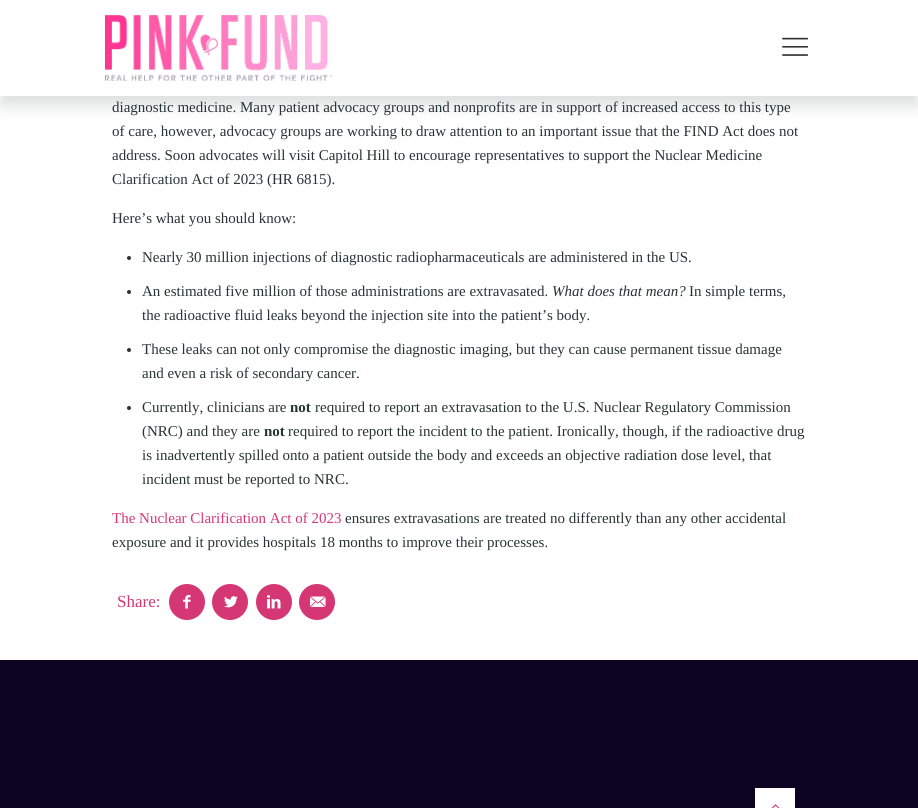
#include <cairo.h>
#include <math.h>
#include <stddef.h>

static cairo_t *ctx;

static void use_color(int r, int g, int b) {
    cairo_set_source_rgb(ctx, r / 255.0, g / 255.0, b / 255.0);
}

static void round_rect(double x, double y, double w, double h, double r) {
    cairo_new_sub_path(ctx);
    cairo_arc(ctx, x + w - r, y + h - r, r, 0, M_PI / 2);
    cairo_arc(ctx, x + r, y + h - r, r, M_PI / 2, M_PI);
    cairo_arc(ctx, x + r, y + r, r, M_PI, 1.5 * M_PI);
    cairo_arc(ctx, x + w - r, y + r, r, 1.5 * M_PI, 2 * M_PI);
    cairo_close_path(ctx);
}

static void shadow(double x, double y, double w, double h, double r, double blur, double alpha) {
    cairo_push_group_with_content(ctx, CAIRO_CONTENT_ALPHA);
    cairo_set_operator(ctx, CAIRO_OPERATOR_SOURCE);
    for (int i = 15; i >= -15 && fmin(w, h) + blur * i / 3 > 0; i -= 2) {
        double e = blur * i / 6;
        cairo_set_source_rgba(ctx, 0, 0, 0, alpha * erfc((i - 1) / 8.5) / 2);
        round_rect(x - e, y - e, w + 2 * e, h + 2 * e, fmax(0, fmin(r + e + blur * .6, fmin(w, h) / 2 + e)));
        cairo_fill(ctx);
    }
    cairo_pattern_t *soft = cairo_pop_group(ctx);
    cairo_mask(ctx, soft);
    cairo_pattern_destroy(soft);
}

static void picture(const char *path, double x, double y, double w, double h) {
    cairo_surface_t *image = cairo_image_surface_create_from_png(path);
    cairo_save(ctx);
    cairo_set_source_surface(ctx, image, x, y);
    cairo_rectangle(ctx, x, y, w, h);
    cairo_fill(ctx);
    cairo_restore(ctx);
    cairo_surface_destroy(image);
}

int main(void) {
    cairo_surface_t *surface = cairo_image_surface_create(CAIRO_FORMAT_RGB24, 918, 808);
    ctx = cairo_create(surface);
    cairo_font_options_t *options = cairo_font_options_create();
    cairo_font_options_set_hint_metrics(options, CAIRO_HINT_METRICS_OFF);
    cairo_font_options_set_hint_style(options, CAIRO_HINT_STYLE_NONE);
    cairo_set_font_options(ctx, options);
    cairo_set_miter_limit(ctx, 4);
    use_color(255, 255, 255);
    cairo_paint(ctx);
    use_color(40, 51, 53);
    shadow(0, 10, 918, 96, 0, 7.5, 0.16);
    use_color(255, 255, 255);
    cairo_rectangle(ctx, 0, 0, 918, 96);
    cairo_fill(ctx);
    picture("img1.png", 105, 15, 227, 66);
    picture("img2.png", 782, 37, 26, 19);
    cairo_select_font_face(ctx, "Liberation Serif", CAIRO_FONT_SLANT_NORMAL, CAIRO_FONT_WEIGHT_NORMAL);
    cairo_set_font_size(ctx, 15);
    use_color(40, 51, 53);
    cairo_move_to(ctx, 112, 112);
    cairo_show_text(ctx, "diagnostic medicine. Many patient advocacy groups and nonprofits are in support of increased access to this type");
    cairo_move_to(ctx, 112, 136);
    cairo_show_text(ctx, "of care, however, advocacy groups are working to draw attention to an important issue that the FIND Act does not");
    cairo_move_to(ctx, 112, 160);
    cairo_show_text(ctx, "address. Soon advocates will visit Capitol Hill to encourage representatives to support the Nuclear Medicine");
    cairo_move_to(ctx, 112, 184);
    cairo_show_text(ctx, "Clarification Act of 2023 (HR 6815).");
    cairo_move_to(ctx, 112, 223);
    cairo_show_text(ctx, "Here’s what you should know:");
    cairo_new_path(ctx);
    cairo_arc(ctx, 129, 258, 2, 0, 2 * M_PI);
    cairo_fill(ctx);
    cairo_move_to(ctx, 142, 262);
    cairo_show_text(ctx, "Nearly 30 million injections of diagnostic radiopharmaceuticals are administered in the US.");
    cairo_new_path(ctx);
    cairo_arc(ctx, 129, 292, 2, 0, 2 * M_PI);
    cairo_fill(ctx);
    cairo_move_to(ctx, 142, 296);
    cairo_show_text(ctx, "An estimated five million of those administrations are extravasated.");
    cairo_select_font_face(ctx, "Liberation Serif", CAIRO_FONT_SLANT_ITALIC, CAIRO_FONT_WEIGHT_NORMAL);
    cairo_move_to(ctx, 552, 296);
    cairo_show_text(ctx, "What does that mean?");
    cairo_select_font_face(ctx, "Liberation Serif", CAIRO_FONT_SLANT_NORMAL, CAIRO_FONT_WEIGHT_NORMAL);
    cairo_move_to(ctx, 689, 296);
    cairo_show_text(ctx, "In simple terms,");
    cairo_move_to(ctx, 142, 320);
    cairo_show_text(ctx, "the radioactive fluid leaks beyond the injection site into the patient’s body.");
    cairo_new_path(ctx);
    cairo_arc(ctx, 129, 350, 2, 0, 2 * M_PI);
    cairo_fill(ctx);
    cairo_move_to(ctx, 142, 354);
    cairo_show_text(ctx, "These leaks can not only compromise the diagnostic imaging, but they can cause permanent tissue damage");
    cairo_move_to(ctx, 142, 378);
    cairo_show_text(ctx, "and even a risk of secondary cancer.");
    cairo_new_path(ctx);
    cairo_arc(ctx, 129, 408, 2, 0, 2 * M_PI);
    cairo_fill(ctx);
    cairo_move_to(ctx, 142, 412);
    cairo_show_text(ctx, "Currently, clinicians are");
    cairo_select_font_face(ctx, "Liberation Serif", CAIRO_FONT_SLANT_NORMAL, CAIRO_FONT_WEIGHT_BOLD);
    cairo_move_to(ctx, 290, 412);
    cairo_show_text(ctx, "not");
    cairo_select_font_face(ctx, "Liberation Serif", CAIRO_FONT_SLANT_NORMAL, CAIRO_FONT_WEIGHT_NORMAL);
    cairo_move_to(ctx, 315, 412);
    cairo_show_text(ctx, "required to report an extravasation to the U.S. Nuclear Regulatory Commission");
    cairo_move_to(ctx, 142, 436);
    cairo_show_text(ctx, "(NRC) and they are");
    cairo_select_font_face(ctx, "Liberation Serif", CAIRO_FONT_SLANT_NORMAL, CAIRO_FONT_WEIGHT_BOLD);
    cairo_move_to(ctx, 264, 436);
    cairo_show_text(ctx, "not");
    cairo_select_font_face(ctx, "Liberation Serif", CAIRO_FONT_SLANT_NORMAL, CAIRO_FONT_WEIGHT_NORMAL);
    cairo_move_to(ctx, 288, 436);
    cairo_show_text(ctx, "required to report the incident to the patient. Ironically, though, if the radioactive drug");
    cairo_move_to(ctx, 142, 460);
    cairo_show_text(ctx, "is inadvertently spilled onto a patient outside the body and exceeds an objective radiation dose level, that");
    cairo_move_to(ctx, 142, 484);
    cairo_show_text(ctx, "incident must be reported to NRC.");
    use_color(213, 55, 117);
    cairo_move_to(ctx, 112, 523);
    cairo_show_text(ctx, "The Nuclear Clarification Act of 2023");
    use_color(40, 51, 53);
    cairo_move_to(ctx, 345, 523);
    cairo_show_text(ctx, "ensures extravasations are treated no differently than any other accidental");
    cairo_move_to(ctx, 112, 547);
    cairo_show_text(ctx, "exposure and it provides hospitals 18 months to improve their processes.");
    cairo_set_font_size(ctx, 17);
    use_color(213, 55, 117);
    cairo_move_to(ctx, 117, 607);
    cairo_show_text(ctx, "Share:");
    cairo_new_path(ctx);
    cairo_arc(ctx, 187, 602, 18, 0, 2 * M_PI);
    cairo_fill(ctx);
    picture("img3.png", 183, 595, 8, 14);
    cairo_arc(ctx, 230, 602, 18, 0, 2 * M_PI);
    cairo_fill(ctx);
    picture("img4.png", 224, 596, 14, 12);
    cairo_arc(ctx, 274, 602, 18, 0, 2 * M_PI);
    cairo_fill(ctx);
    picture("img5.png", 267, 595, 14, 14);
    cairo_arc(ctx, 317, 602, 18, 0, 2 * M_PI);
    cairo_fill(ctx);
    picture("img6.png", 310, 596, 16, 11);
    use_color(12, 3, 35);
    cairo_rectangle(ctx, 0, 660, 918, 148);
    cairo_fill(ctx);
    use_color(255, 255, 255);
    cairo_rectangle(ctx, 755, 788, 40, 20);
    cairo_fill(ctx);
    picture("img7.png", 771, 804, 9, 4);
    cairo_surface_write_to_png(surface, "result.png");
    cairo_font_options_destroy(options);
    cairo_destroy(ctx);
    cairo_surface_destroy(surface);
    return 0;
}
